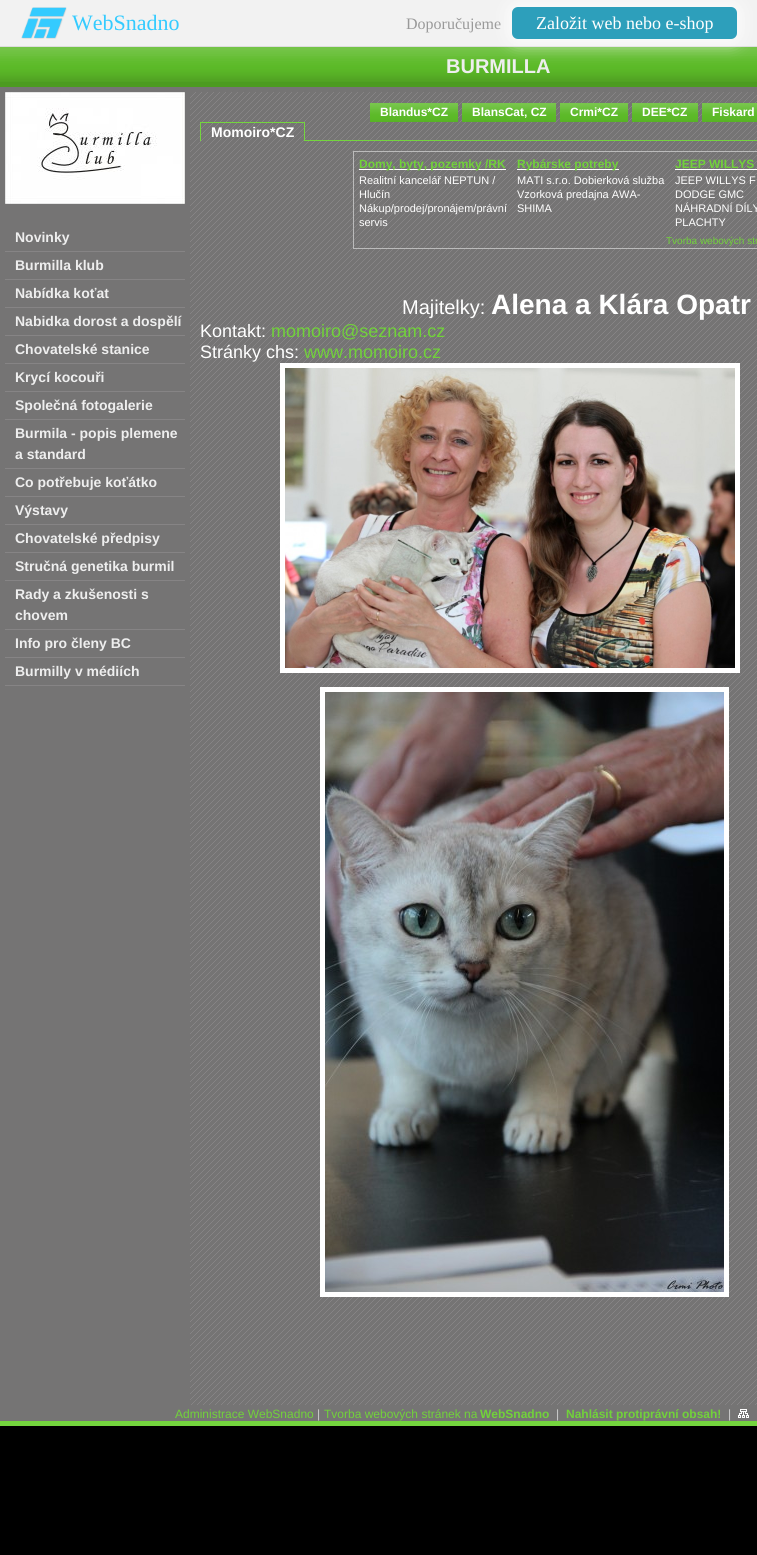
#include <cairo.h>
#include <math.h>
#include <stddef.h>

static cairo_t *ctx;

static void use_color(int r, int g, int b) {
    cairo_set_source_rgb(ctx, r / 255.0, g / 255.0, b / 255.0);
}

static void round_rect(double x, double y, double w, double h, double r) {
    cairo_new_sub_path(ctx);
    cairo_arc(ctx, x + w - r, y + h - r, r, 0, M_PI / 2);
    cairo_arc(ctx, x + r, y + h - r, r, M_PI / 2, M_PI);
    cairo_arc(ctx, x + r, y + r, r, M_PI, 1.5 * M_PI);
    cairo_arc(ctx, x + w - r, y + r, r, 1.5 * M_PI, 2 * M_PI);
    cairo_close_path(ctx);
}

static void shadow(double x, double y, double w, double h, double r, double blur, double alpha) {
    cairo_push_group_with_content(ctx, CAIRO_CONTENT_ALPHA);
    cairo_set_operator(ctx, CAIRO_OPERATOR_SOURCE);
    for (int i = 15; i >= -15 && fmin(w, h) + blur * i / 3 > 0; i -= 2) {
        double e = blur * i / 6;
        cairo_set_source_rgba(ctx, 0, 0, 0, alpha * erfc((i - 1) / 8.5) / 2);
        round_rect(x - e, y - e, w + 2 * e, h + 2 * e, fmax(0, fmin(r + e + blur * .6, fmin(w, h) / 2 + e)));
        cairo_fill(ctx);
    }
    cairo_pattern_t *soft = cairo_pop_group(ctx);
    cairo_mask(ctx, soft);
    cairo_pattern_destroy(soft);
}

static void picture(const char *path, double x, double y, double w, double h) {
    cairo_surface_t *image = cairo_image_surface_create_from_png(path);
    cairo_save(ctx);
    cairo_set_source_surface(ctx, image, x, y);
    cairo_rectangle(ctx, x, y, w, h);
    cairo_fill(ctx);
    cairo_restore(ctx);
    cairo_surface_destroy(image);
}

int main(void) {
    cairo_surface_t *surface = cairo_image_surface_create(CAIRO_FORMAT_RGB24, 757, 1555);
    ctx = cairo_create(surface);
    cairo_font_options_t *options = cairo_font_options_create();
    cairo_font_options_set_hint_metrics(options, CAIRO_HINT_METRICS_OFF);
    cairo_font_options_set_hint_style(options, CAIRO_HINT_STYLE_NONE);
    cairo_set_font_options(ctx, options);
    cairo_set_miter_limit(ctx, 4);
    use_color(0, 0, 0);
    cairo_paint(ctx);
    use_color(242, 242, 242);
    cairo_rectangle(ctx, 0, 0, 757, 46);
    cairo_fill(ctx);
    use_color(221, 221, 221);
    cairo_rectangle(ctx, 0, 46, 757, 1);
    cairo_fill(ctx);
    picture("img1.png", 21, 7, 46, 32);
    cairo_select_font_face(ctx, "Liberation Serif", CAIRO_FONT_SLANT_NORMAL, CAIRO_FONT_WEIGHT_NORMAL);
    cairo_set_font_size(ctx, 22);
    use_color(52, 203, 255);
    cairo_move_to(ctx, 72, 30);
    cairo_show_text(ctx, "WebSnadno");
    cairo_set_font_size(ctx, 16);
    use_color(153, 153, 153);
    cairo_move_to(ctx, 406, 29);
    cairo_show_text(ctx, "Doporučujeme");
    picture("img2.png", 0, 47, 757, 35);
    use_color(255, 255, 255);
    shadow(508, 3, 233, 40, 10, 8, 0.75);
    use_color(45, 159, 187);
    round_rect(512, 7, 225, 32, 6);
    cairo_fill(ctx);
    cairo_set_font_size(ctx, 18);
    use_color(255, 255, 255);
    cairo_move_to(ctx, 536, 29);
    cairo_show_text(ctx, "Založit web nebo e-shop");
    use_color(76, 155, 32);
    cairo_rectangle(ctx, 0, 82, 757, 5);
    cairo_fill(ctx);
    cairo_select_font_face(ctx, "Liberation Sans", CAIRO_FONT_SLANT_NORMAL, CAIRO_FONT_WEIGHT_BOLD);
    cairo_set_font_size(ctx, 20);
    use_color(238, 238, 238);
    cairo_move_to(ctx, 446, 73);
    cairo_show_text(ctx, "BURMILLA");
    use_color(117, 116, 116);
    cairo_rectangle(ctx, 0, 87, 190, 1319);
    cairo_fill(ctx);
    picture("img3.png", 190, 92, 567, 1313);
    cairo_rectangle(ctx, 190, 87, 567, 5);
    cairo_fill(ctx);
    cairo_rectangle(ctx, 190, 1405, 567, 1);
    cairo_fill(ctx);
    use_color(116, 213, 62);
    cairo_rectangle(ctx, 305, 140, 452, 1);
    cairo_fill(ctx);
    picture("img4.png", 370, 103, 88, 19);
    cairo_set_font_size(ctx, 12);
    use_color(255, 255, 255);
    cairo_move_to(ctx, 380, 116);
    cairo_show_text(ctx, "Blandus*CZ");
    picture("img5.png", 462, 103, 94, 19);
    cairo_move_to(ctx, 472, 116);
    cairo_show_text(ctx, "BlansCat‚ CZ");
    picture("img6.png", 560, 103, 68, 19);
    cairo_move_to(ctx, 570, 116);
    cairo_show_text(ctx, "Crmi*CZ");
    picture("img7.png", 632, 103, 66, 19);
    cairo_move_to(ctx, 642, 116);
    cairo_show_text(ctx, "DEE*CZ");
    picture("img8.png", 702, 103, 55, 19);
    cairo_move_to(ctx, 712, 116);
    cairo_show_text(ctx, "Fiskard");
    use_color(116, 213, 62);
    cairo_rectangle(ctx, 200, 122, 105, 1);
    cairo_fill(ctx);
    cairo_rectangle(ctx, 304, 122, 1, 19);
    cairo_fill(ctx);
    cairo_rectangle(ctx, 200, 122, 1, 19);
    cairo_fill(ctx);
    cairo_set_font_size(ctx, 14);
    use_color(255, 255, 255);
    cairo_move_to(ctx, 211, 137);
    cairo_show_text(ctx, "Momoiro*CZ");
    cairo_rectangle(ctx, 353.5, 151.5, 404, 97);
    use_color(187, 187, 187);
    cairo_set_line_width(ctx, 1);
    cairo_stroke(ctx);
    use_color(255, 255, 255);
    cairo_rectangle(ctx, 359, 169, 147, 1);
    cairo_fill(ctx);
    cairo_set_font_size(ctx, 12);
    use_color(113, 210, 58);
    cairo_move_to(ctx, 359, 168);
    cairo_show_text(ctx, "Domy, byty, pozemky /RK");
    cairo_select_font_face(ctx, "Liberation Sans", CAIRO_FONT_SLANT_NORMAL, CAIRO_FONT_WEIGHT_NORMAL);
    cairo_set_font_size(ctx, 11);
    use_color(255, 255, 255);
    cairo_move_to(ctx, 359, 184);
    cairo_show_text(ctx, "Realitní kancelář NEPTUN /");
    cairo_move_to(ctx, 359, 198);
    cairo_show_text(ctx, "Hlučín");
    cairo_move_to(ctx, 359, 212);
    cairo_show_text(ctx, "Nákup/prodej/pronájem/právní");
    cairo_move_to(ctx, 359, 226);
    cairo_show_text(ctx, "servis");
    cairo_rectangle(ctx, 517, 169, 102, 1);
    cairo_fill(ctx);
    cairo_select_font_face(ctx, "Liberation Sans", CAIRO_FONT_SLANT_NORMAL, CAIRO_FONT_WEIGHT_BOLD);
    cairo_set_font_size(ctx, 12);
    use_color(113, 210, 58);
    cairo_move_to(ctx, 517, 168);
    cairo_show_text(ctx, "Rybárske potreby");
    cairo_select_font_face(ctx, "Liberation Sans", CAIRO_FONT_SLANT_NORMAL, CAIRO_FONT_WEIGHT_NORMAL);
    cairo_set_font_size(ctx, 11);
    use_color(255, 255, 255);
    cairo_move_to(ctx, 517, 184);
    cairo_show_text(ctx, "MATI s.r.o. Dobierková služba");
    cairo_move_to(ctx, 517, 198);
    cairo_show_text(ctx, "Vzorková predajna AWA-");
    cairo_move_to(ctx, 517, 212);
    cairo_show_text(ctx, "SHIMA");
    cairo_select_font_face(ctx, "Liberation Sans", CAIRO_FONT_SLANT_NORMAL, CAIRO_FONT_WEIGHT_BOLD);
    cairo_set_font_size(ctx, 12);
    use_color(113, 210, 58);
    cairo_move_to(ctx, 675, 168);
    cairo_show_text(ctx, "JEEP WILLYS");
    use_color(255, 255, 255);
    cairo_rectangle(ctx, 675, 169, 82, 1);
    cairo_fill(ctx);
    cairo_select_font_face(ctx, "Liberation Sans", CAIRO_FONT_SLANT_NORMAL, CAIRO_FONT_WEIGHT_NORMAL);
    cairo_set_font_size(ctx, 11);
    cairo_move_to(ctx, 675, 184);
    cairo_show_text(ctx, "JEEP WILLYS F");
    cairo_move_to(ctx, 675, 198);
    cairo_show_text(ctx, "DODGE GMC");
    cairo_move_to(ctx, 675, 212);
    cairo_show_text(ctx, "NÁHRADNÍ DÍLY");
    cairo_move_to(ctx, 675, 226);
    cairo_show_text(ctx, "PLACHTY");
    cairo_set_font_size(ctx, 10);
    use_color(113, 210, 58);
    cairo_move_to(ctx, 666, 244);
    cairo_show_text(ctx, "Tvorba webových str");
    cairo_set_font_size(ctx, 20);
    use_color(255, 255, 255);
    cairo_move_to(ctx, 402, 314);
    cairo_show_text(ctx, "Majitelky:");
    cairo_select_font_face(ctx, "Liberation Sans", CAIRO_FONT_SLANT_NORMAL, CAIRO_FONT_WEIGHT_BOLD);
    cairo_set_font_size(ctx, 28);
    cairo_move_to(ctx, 491, 314);
    cairo_show_text(ctx, "Alena a Klára Opatr");
    cairo_select_font_face(ctx, "Liberation Sans", CAIRO_FONT_SLANT_NORMAL, CAIRO_FONT_WEIGHT_NORMAL);
    cairo_set_font_size(ctx, 18);
    cairo_move_to(ctx, 200, 337);
    cairo_show_text(ctx, "Kontakt:");
    use_color(113, 210, 58);
    cairo_move_to(ctx, 271, 337);
    cairo_show_text(ctx, "momoiro@seznam.cz");
    use_color(255, 255, 255);
    cairo_move_to(ctx, 200, 358);
    cairo_show_text(ctx, "Stránky chs:");
    use_color(113, 210, 58);
    cairo_move_to(ctx, 304, 358);
    cairo_show_text(ctx, "www.momoiro.cz");
    cairo_rectangle(ctx, 282.5, 365.5, 455, 305);
    use_color(255, 255, 255);
    cairo_set_line_width(ctx, 5);
    cairo_stroke(ctx);
    picture("img9.png", 285, 368, 450, 300);
    cairo_rectangle(ctx, 322.5, 689.5, 404, 605);
    cairo_stroke(ctx);
    picture("img10.png", 325, 692, 399, 600);
    picture("img11.png", 5, 92, 180, 112);
    use_color(134, 132, 133);
    cairo_rectangle(ctx, 5, 251, 180, 1);
    cairo_fill(ctx);
    cairo_select_font_face(ctx, "Liberation Sans", CAIRO_FONT_SLANT_NORMAL, CAIRO_FONT_WEIGHT_BOLD);
    cairo_set_font_size(ctx, 14);
    use_color(238, 238, 238);
    cairo_move_to(ctx, 15, 242);
    cairo_show_text(ctx, "Novinky");
    use_color(134, 132, 133);
    cairo_rectangle(ctx, 5, 279, 180, 1);
    cairo_fill(ctx);
    use_color(238, 238, 238);
    cairo_move_to(ctx, 15, 270);
    cairo_show_text(ctx, "Burmilla klub");
    use_color(134, 132, 133);
    cairo_rectangle(ctx, 5, 307, 180, 1);
    cairo_fill(ctx);
    use_color(238, 238, 238);
    cairo_move_to(ctx, 15, 298);
    cairo_show_text(ctx, "Nabídka koťat");
    use_color(134, 132, 133);
    cairo_rectangle(ctx, 5, 335, 180, 1);
    cairo_fill(ctx);
    use_color(238, 238, 238);
    cairo_move_to(ctx, 15, 326);
    cairo_show_text(ctx, "Nabidka dorost a dospělí");
    use_color(134, 132, 133);
    cairo_rectangle(ctx, 5, 363, 180, 1);
    cairo_fill(ctx);
    use_color(238, 238, 238);
    cairo_move_to(ctx, 15, 354);
    cairo_show_text(ctx, "Chovatelské stanice");
    use_color(134, 132, 133);
    cairo_rectangle(ctx, 5, 391, 180, 1);
    cairo_fill(ctx);
    use_color(238, 238, 238);
    cairo_move_to(ctx, 15, 382);
    cairo_show_text(ctx, "Krycí kocouři");
    use_color(134, 132, 133);
    cairo_rectangle(ctx, 5, 419, 180, 1);
    cairo_fill(ctx);
    use_color(238, 238, 238);
    cairo_move_to(ctx, 15, 410);
    cairo_show_text(ctx, "Společná fotogalerie");
    use_color(134, 132, 133);
    cairo_rectangle(ctx, 5, 468, 180, 1);
    cairo_fill(ctx);
    use_color(238, 238, 238);
    cairo_move_to(ctx, 15, 438);
    cairo_show_text(ctx, "Burmila - popis plemene");
    cairo_move_to(ctx, 15, 459);
    cairo_show_text(ctx, "a standard");
    use_color(134, 132, 133);
    cairo_rectangle(ctx, 5, 496, 180, 1);
    cairo_fill(ctx);
    use_color(238, 238, 238);
    cairo_move_to(ctx, 15, 487);
    cairo_show_text(ctx, "Co potřebuje koťátko");
    use_color(134, 132, 133);
    cairo_rectangle(ctx, 5, 524, 180, 1);
    cairo_fill(ctx);
    use_color(238, 238, 238);
    cairo_move_to(ctx, 15, 515);
    cairo_show_text(ctx, "Výstavy");
    use_color(134, 132, 133);
    cairo_rectangle(ctx, 5, 552, 180, 1);
    cairo_fill(ctx);
    use_color(238, 238, 238);
    cairo_move_to(ctx, 15, 543);
    cairo_show_text(ctx, "Chovatelské předpisy");
    use_color(134, 132, 133);
    cairo_rectangle(ctx, 5, 580, 180, 1);
    cairo_fill(ctx);
    use_color(238, 238, 238);
    cairo_move_to(ctx, 15, 571);
    cairo_show_text(ctx, "Stručná genetika burmil");
    use_color(134, 132, 133);
    cairo_rectangle(ctx, 5, 629, 180, 1);
    cairo_fill(ctx);
    use_color(238, 238, 238);
    cairo_move_to(ctx, 15, 599);
    cairo_show_text(ctx, "Rady a zkušenosti s");
    cairo_move_to(ctx, 15, 620);
    cairo_show_text(ctx, "chovem");
    use_color(134, 132, 133);
    cairo_rectangle(ctx, 5, 657, 180, 1);
    cairo_fill(ctx);
    use_color(238, 238, 238);
    cairo_move_to(ctx, 15, 648);
    cairo_show_text(ctx, "Info pro členy BC");
    use_color(134, 132, 133);
    cairo_rectangle(ctx, 5, 685, 180, 1);
    cairo_fill(ctx);
    use_color(238, 238, 238);
    cairo_move_to(ctx, 15, 676);
    cairo_show_text(ctx, "Burmilly v médiích");
    use_color(117, 116, 116);
    cairo_rectangle(ctx, 0, 1406, 757, 15);
    cairo_fill(ctx);
    use_color(116, 213, 62);
    cairo_rectangle(ctx, 0, 1421, 757, 5);
    cairo_fill(ctx);
    cairo_select_font_face(ctx, "Liberation Sans", CAIRO_FONT_SLANT_NORMAL, CAIRO_FONT_WEIGHT_NORMAL);
    cairo_set_font_size(ctx, 12);
    use_color(113, 210, 58);
    cairo_move_to(ctx, 175, 1418);
    cairo_show_text(ctx, "Administrace WebSnadno");
    use_color(204, 204, 204);
    cairo_move_to(ctx, 317, 1418);
    cairo_show_text(ctx, "|");
    use_color(113, 210, 58);
    cairo_move_to(ctx, 324, 1418);
    cairo_show_text(ctx, "Tvorba webových stránek na");
    cairo_select_font_face(ctx, "Liberation Sans", CAIRO_FONT_SLANT_NORMAL, CAIRO_FONT_WEIGHT_BOLD);
    cairo_move_to(ctx, 480, 1418);
    cairo_show_text(ctx, "WebSnadno");
    cairo_select_font_face(ctx, "Liberation Sans", CAIRO_FONT_SLANT_NORMAL, CAIRO_FONT_WEIGHT_NORMAL);
    use_color(204, 204, 204);
    cairo_move_to(ctx, 556, 1418);
    cairo_show_text(ctx, "|");
    cairo_select_font_face(ctx, "Liberation Sans", CAIRO_FONT_SLANT_NORMAL, CAIRO_FONT_WEIGHT_BOLD);
    use_color(113, 210, 58);
    cairo_move_to(ctx, 566, 1418);
    cairo_show_text(ctx, "Nahlásit protiprávní obsah!");
    cairo_select_font_face(ctx, "Liberation Sans", CAIRO_FONT_SLANT_NORMAL, CAIRO_FONT_WEIGHT_NORMAL);
    use_color(204, 204, 204);
    cairo_move_to(ctx, 728, 1418);
    cairo_show_text(ctx, "|");
    picture("img12.png", 738, 1409, 11, 9);
    cairo_surface_write_to_png(surface, "result.png");
    cairo_font_options_destroy(options);
    cairo_destroy(ctx);
    cairo_surface_destroy(surface);
    return 0;
}
